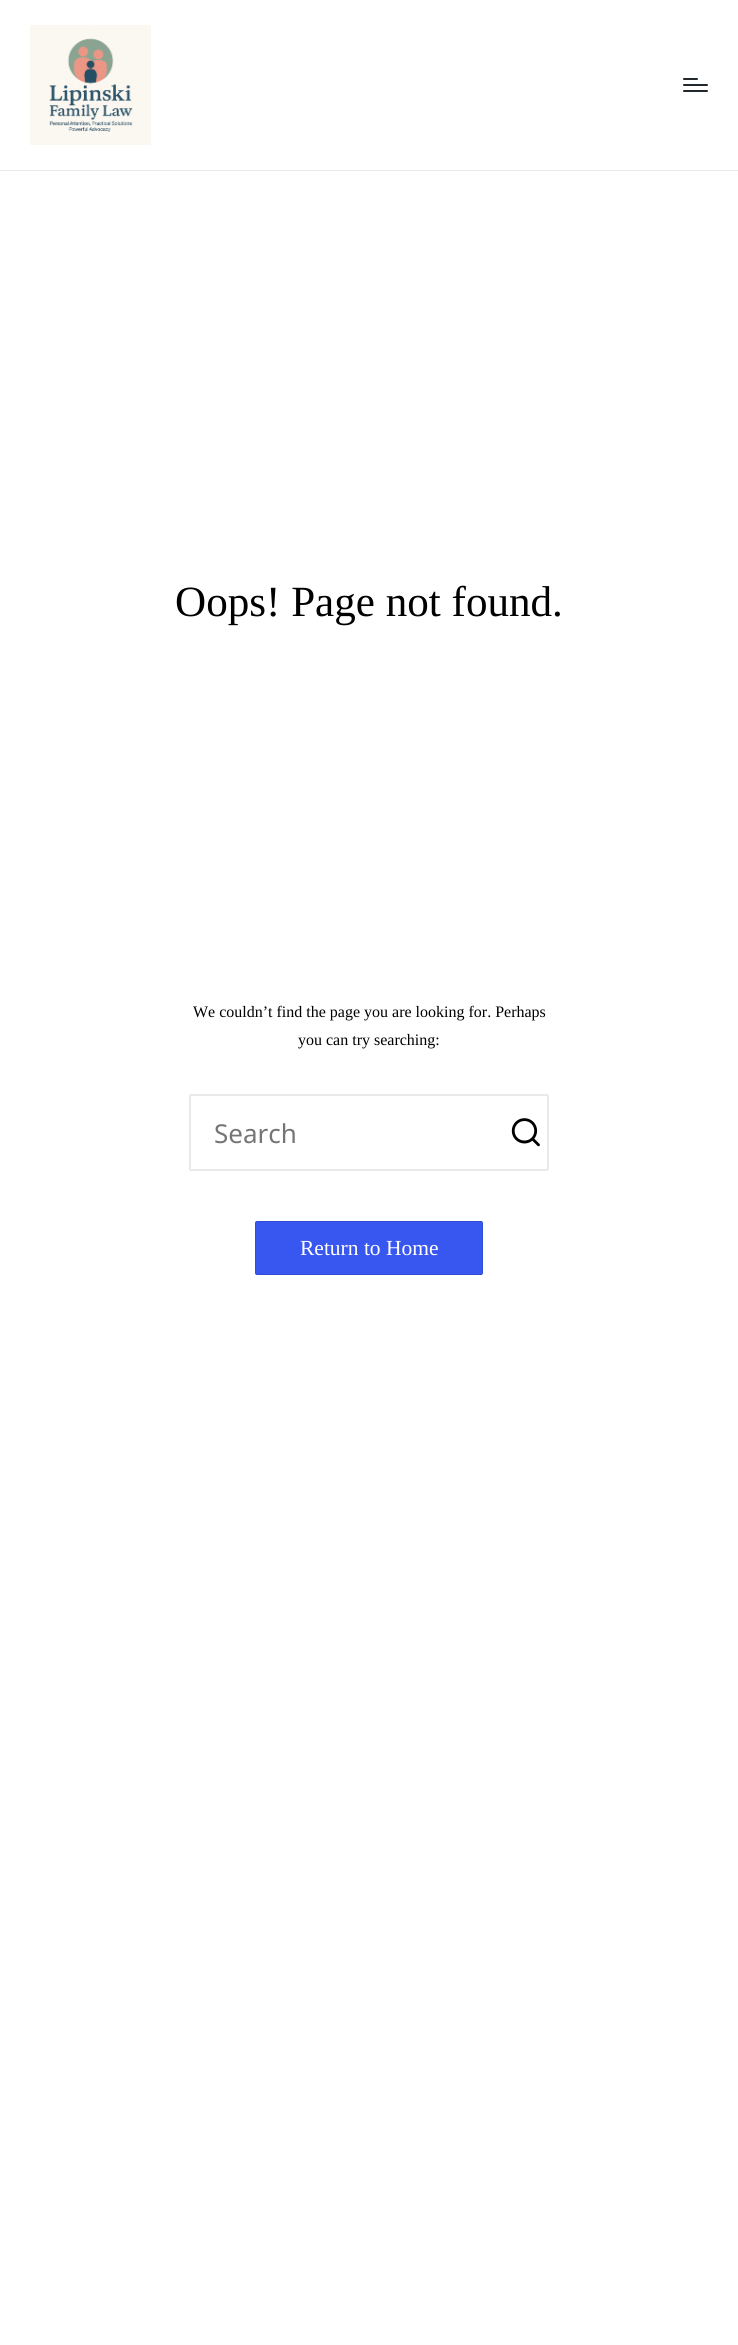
#include <cairo.h>
#include <math.h>
#include <stddef.h>

static cairo_t *ctx;

static void use_color(int r, int g, int b) {
    cairo_set_source_rgb(ctx, r / 255.0, g / 255.0, b / 255.0);
}

static void round_rect(double x, double y, double w, double h, double r) {
    cairo_new_sub_path(ctx);
    cairo_arc(ctx, x + w - r, y + h - r, r, 0, M_PI / 2);
    cairo_arc(ctx, x + r, y + h - r, r, M_PI / 2, M_PI);
    cairo_arc(ctx, x + r, y + r, r, M_PI, 1.5 * M_PI);
    cairo_arc(ctx, x + w - r, y + r, r, 1.5 * M_PI, 2 * M_PI);
    cairo_close_path(ctx);
}

static void picture(const char *path, double x, double y, double w, double h) {
    cairo_surface_t *image = cairo_image_surface_create_from_png(path);
    cairo_save(ctx);
    cairo_set_source_surface(ctx, image, x, y);
    cairo_rectangle(ctx, x, y, w, h);
    cairo_fill(ctx);
    cairo_restore(ctx);
    cairo_surface_destroy(image);
}

int main(void) {
    cairo_surface_t *surface = cairo_image_surface_create(CAIRO_FORMAT_RGB24, 738, 2345);
    ctx = cairo_create(surface);
    cairo_font_options_t *options = cairo_font_options_create();
    cairo_font_options_set_hint_metrics(options, CAIRO_HINT_METRICS_OFF);
    cairo_font_options_set_hint_style(options, CAIRO_HINT_STYLE_NONE);
    cairo_set_font_options(ctx, options);
    cairo_set_miter_limit(ctx, 4);
    use_color(255, 255, 255);
    cairo_paint(ctx);
    use_color(233, 233, 233);
    cairo_rectangle(ctx, 0, 170, 738, 1);
    cairo_fill(ctx);
    picture("img1.png", 30, 25, 121, 120);
    use_color(35, 40, 45);
    round_rect(683, 84, 25, 2, 1);
    cairo_fill(ctx);
    round_rect(683, 78, 15, 2, 1);
    cairo_fill(ctx);
    round_rect(683, 90, 25, 2, 1);
    cairo_fill(ctx);
    cairo_select_font_face(ctx, "Liberation Serif", CAIRO_FONT_SLANT_NORMAL, CAIRO_FONT_WEIGHT_NORMAL);
    cairo_set_font_size(ctx, 43.1);
    use_color(0, 0, 0);
    cairo_move_to(ctx, 175, 616);
    cairo_show_text(ctx, "Oops! Page not found.");
    cairo_set_font_size(ctx, 16);
    cairo_move_to(ctx, 193, 1017);
    cairo_show_text(ctx, "We couldn’t find the page you are looking for. Perhaps");
    cairo_move_to(ctx, 298, 1045);
    cairo_show_text(ctx, "you can try searching:");
    round_rect(190, 1095, 358, 75, 1);
    use_color(233, 233, 233);
    cairo_stroke(ctx);
    cairo_select_font_face(ctx, "Noto Sans", CAIRO_FONT_SLANT_NORMAL, CAIRO_FONT_WEIGHT_NORMAL);
    cairo_set_font_size(ctx, 26);
    use_color(117, 117, 117);
    cairo_move_to(ctx, 214, 1143);
    cairo_show_text(ctx, "Search");
    picture("img2.png", 511, 1118, 29, 29);
    use_color(56, 87, 241);
    round_rect(255, 1221, 228, 54, 2);
    cairo_fill(ctx);
    round_rect(255.5, 1221.5, 227, 53, 1.5);
    cairo_set_source_rgba(ctx, 0, 0, 0, 0.12);
    cairo_set_line_width(ctx, 1);
    cairo_stroke(ctx);
    cairo_select_font_face(ctx, "Liberation Serif", CAIRO_FONT_SLANT_NORMAL, CAIRO_FONT_WEIGHT_NORMAL);
    cairo_set_font_size(ctx, 21.5);
    use_color(255, 255, 255);
    cairo_move_to(ctx, 300, 1255);
    cairo_show_text(ctx, "Return to Home");
    cairo_surface_write_to_png(surface, "result.png");
    cairo_font_options_destroy(options);
    cairo_destroy(ctx);
    cairo_surface_destroy(surface);
    return 0;
}
